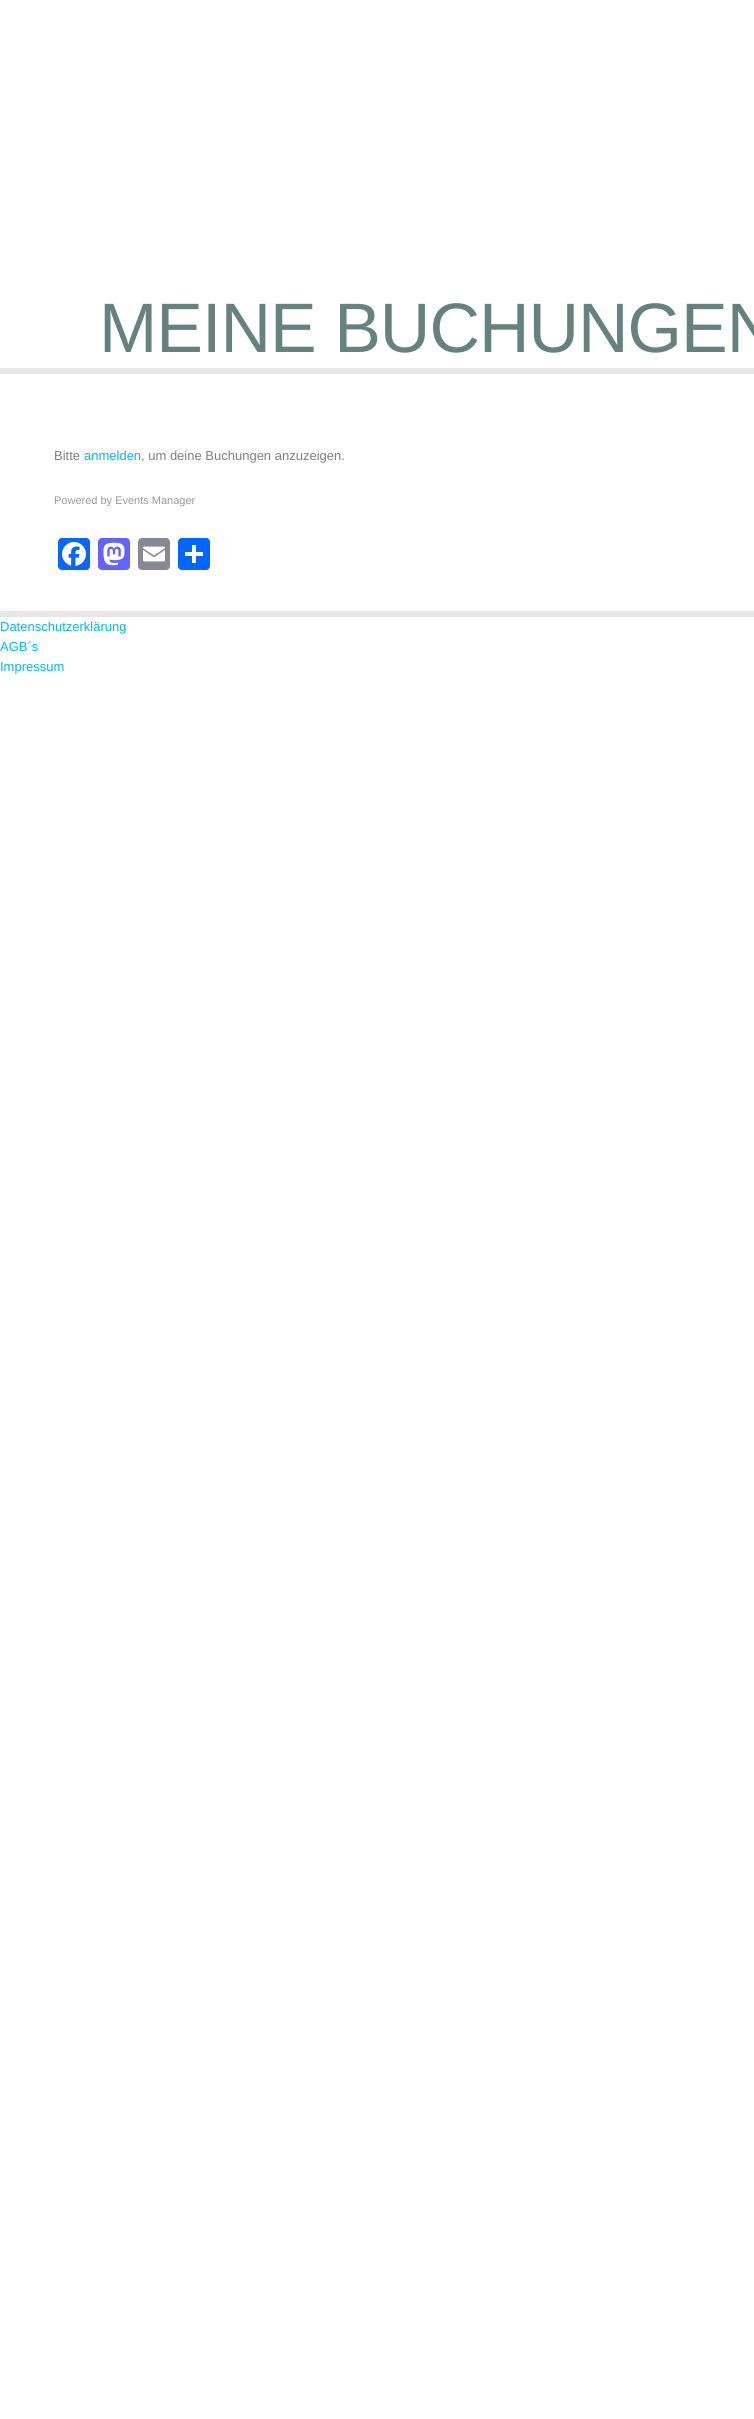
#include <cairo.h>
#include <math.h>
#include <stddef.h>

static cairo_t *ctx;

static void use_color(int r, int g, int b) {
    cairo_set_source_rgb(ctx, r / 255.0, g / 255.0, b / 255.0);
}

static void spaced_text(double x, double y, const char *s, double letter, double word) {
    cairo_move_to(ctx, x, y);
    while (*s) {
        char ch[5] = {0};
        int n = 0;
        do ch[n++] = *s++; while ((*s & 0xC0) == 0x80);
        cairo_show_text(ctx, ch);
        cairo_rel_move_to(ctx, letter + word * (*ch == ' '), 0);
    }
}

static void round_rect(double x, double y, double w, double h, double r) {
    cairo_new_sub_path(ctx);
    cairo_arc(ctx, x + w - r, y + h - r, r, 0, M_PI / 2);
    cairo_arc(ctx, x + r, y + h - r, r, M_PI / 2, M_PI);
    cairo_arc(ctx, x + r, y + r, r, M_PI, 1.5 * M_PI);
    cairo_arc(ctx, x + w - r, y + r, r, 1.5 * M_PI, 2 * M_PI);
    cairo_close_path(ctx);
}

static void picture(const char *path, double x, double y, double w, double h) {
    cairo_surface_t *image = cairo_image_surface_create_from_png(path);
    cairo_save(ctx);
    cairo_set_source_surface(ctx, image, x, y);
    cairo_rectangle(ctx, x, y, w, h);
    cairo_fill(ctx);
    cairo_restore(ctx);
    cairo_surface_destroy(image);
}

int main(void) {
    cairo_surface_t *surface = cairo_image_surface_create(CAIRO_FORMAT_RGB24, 754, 2419);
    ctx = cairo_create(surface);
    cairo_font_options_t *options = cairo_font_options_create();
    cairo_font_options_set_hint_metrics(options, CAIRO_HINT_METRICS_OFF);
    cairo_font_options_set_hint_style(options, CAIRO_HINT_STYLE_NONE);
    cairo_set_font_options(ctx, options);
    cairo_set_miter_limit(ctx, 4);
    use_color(255, 255, 255);
    cairo_paint(ctx);
    cairo_select_font_face(ctx, "Liberation Sans", CAIRO_FONT_SLANT_NORMAL, CAIRO_FONT_WEIGHT_NORMAL);
    cairo_set_font_size(ctx, 70);
    use_color(101, 130, 125);
    spaced_text(99, 352, "MEINE BUCHUNGEN", -1, 0);
    use_color(230, 230, 230);
    cairo_rectangle(ctx, 0, 368, 754, 249);
    cairo_fill(ctx);
    use_color(255, 255, 255);
    cairo_rectangle(ctx, 0, 374, 754, 237);
    cairo_fill(ctx);
    cairo_set_font_size(ctx, 13);
    use_color(127, 127, 127);
    cairo_move_to(ctx, 54, 460);
    cairo_show_text(ctx, "Bitte");
    use_color(0, 183, 243);
    cairo_move_to(ctx, 84, 460);
    cairo_show_text(ctx, "anmelden");
    use_color(127, 127, 127);
    cairo_move_to(ctx, 141, 460);
    cairo_show_text(ctx, ", um deine Buchungen anzuzeigen.");
    cairo_set_font_size(ctx, 11);
    use_color(153, 153, 153);
    cairo_move_to(ctx, 54, 504);
    cairo_show_text(ctx, "Powered by Events Manager");
    use_color(8, 102, 255);
    round_rect(58, 538, 32, 32, 4);
    cairo_fill(ctx);
    picture("img1.png", 62, 542, 24, 24);
    use_color(99, 100, 255);
    round_rect(98, 538, 32, 32, 4);
    cairo_fill(ctx);
    picture("img2.png", 103, 542, 22, 24);
    use_color(136, 137, 144);
    round_rect(138, 538, 32, 32, 4);
    cairo_fill(ctx);
    picture("img3.png", 143, 546, 22, 16);
    use_color(1, 102, 255);
    round_rect(178, 538, 32, 32, 4);
    cairo_fill(ctx);
    use_color(255, 255, 255);
    cairo_rectangle(ctx, 192, 545, 4, 18);
    cairo_fill(ctx);
    cairo_rectangle(ctx, 185, 552, 18, 4);
    cairo_fill(ctx);
    cairo_set_font_size(ctx, 13);
    use_color(0, 183, 243);
    cairo_move_to(ctx, 0, 631);
    cairo_show_text(ctx, "Datenschutzerklärung");
    cairo_move_to(ctx, 0, 651);
    cairo_show_text(ctx, "AGB´s");
    cairo_move_to(ctx, 0, 671);
    cairo_show_text(ctx, "Impressum");
    cairo_surface_write_to_png(surface, "result.png");
    cairo_font_options_destroy(options);
    cairo_destroy(ctx);
    cairo_surface_destroy(surface);
    return 0;
}
